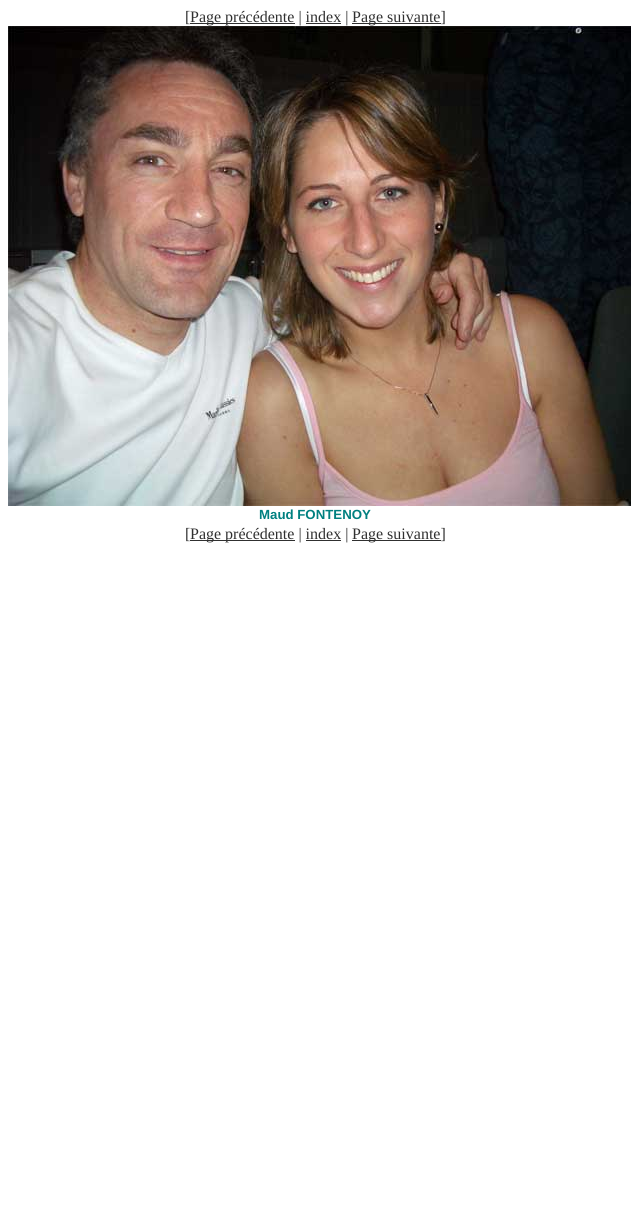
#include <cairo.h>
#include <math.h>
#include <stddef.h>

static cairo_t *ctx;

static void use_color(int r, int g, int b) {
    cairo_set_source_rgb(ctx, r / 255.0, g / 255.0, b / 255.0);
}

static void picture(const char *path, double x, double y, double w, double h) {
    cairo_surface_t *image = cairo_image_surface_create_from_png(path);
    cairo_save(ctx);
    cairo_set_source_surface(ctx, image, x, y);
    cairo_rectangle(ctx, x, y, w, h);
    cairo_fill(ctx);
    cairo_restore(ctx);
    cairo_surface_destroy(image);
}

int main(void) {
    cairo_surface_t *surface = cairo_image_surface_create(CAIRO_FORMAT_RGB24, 631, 1208);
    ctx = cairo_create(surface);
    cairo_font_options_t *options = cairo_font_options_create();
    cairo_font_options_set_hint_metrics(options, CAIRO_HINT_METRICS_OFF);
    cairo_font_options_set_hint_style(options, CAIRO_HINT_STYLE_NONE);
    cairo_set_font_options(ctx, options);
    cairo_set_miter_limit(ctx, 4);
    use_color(255, 255, 255);
    cairo_paint(ctx);
    cairo_select_font_face(ctx, "Liberation Serif", CAIRO_FONT_SLANT_NORMAL, CAIRO_FONT_WEIGHT_NORMAL);
    cairo_set_font_size(ctx, 16);
    use_color(48, 48, 48);
    cairo_move_to(ctx, 185, 22);
    cairo_show_text(ctx, "[");
    cairo_rectangle(ctx, 190, 23, 105, 1);
    cairo_fill(ctx);
    cairo_move_to(ctx, 190, 22);
    cairo_show_text(ctx, "Page précédente | index |");
    cairo_rectangle(ctx, 352, 23, 89, 1);
    cairo_fill(ctx);
    cairo_move_to(ctx, 352, 22);
    cairo_show_text(ctx, "Page suivante]");
    cairo_rectangle(ctx, 306, 23, 35, 1);
    cairo_fill(ctx);
    picture("img1.png", 8, 26, 623, 480);
    cairo_select_font_face(ctx, "Liberation Sans", CAIRO_FONT_SLANT_NORMAL, CAIRO_FONT_WEIGHT_BOLD);
    cairo_set_font_size(ctx, 13.25);
    use_color(0, 128, 128);
    cairo_move_to(ctx, 259, 519);
    cairo_show_text(ctx, "Maud FONTENOY");
    cairo_select_font_face(ctx, "Liberation Serif", CAIRO_FONT_SLANT_NORMAL, CAIRO_FONT_WEIGHT_NORMAL);
    cairo_set_font_size(ctx, 16);
    use_color(48, 48, 48);
    cairo_move_to(ctx, 185, 539);
    cairo_show_text(ctx, "[");
    cairo_rectangle(ctx, 190, 540, 105, 1);
    cairo_fill(ctx);
    cairo_move_to(ctx, 190, 539);
    cairo_show_text(ctx, "Page précédente | index |");
    cairo_rectangle(ctx, 352, 540, 89, 1);
    cairo_fill(ctx);
    cairo_move_to(ctx, 352, 539);
    cairo_show_text(ctx, "Page suivante]");
    cairo_rectangle(ctx, 306, 540, 35, 1);
    cairo_fill(ctx);
    cairo_surface_write_to_png(surface, "result.png");
    cairo_font_options_destroy(options);
    cairo_destroy(ctx);
    cairo_surface_destroy(surface);
    return 0;
}
